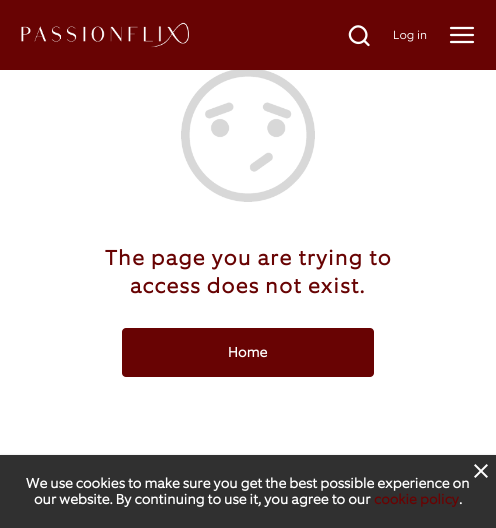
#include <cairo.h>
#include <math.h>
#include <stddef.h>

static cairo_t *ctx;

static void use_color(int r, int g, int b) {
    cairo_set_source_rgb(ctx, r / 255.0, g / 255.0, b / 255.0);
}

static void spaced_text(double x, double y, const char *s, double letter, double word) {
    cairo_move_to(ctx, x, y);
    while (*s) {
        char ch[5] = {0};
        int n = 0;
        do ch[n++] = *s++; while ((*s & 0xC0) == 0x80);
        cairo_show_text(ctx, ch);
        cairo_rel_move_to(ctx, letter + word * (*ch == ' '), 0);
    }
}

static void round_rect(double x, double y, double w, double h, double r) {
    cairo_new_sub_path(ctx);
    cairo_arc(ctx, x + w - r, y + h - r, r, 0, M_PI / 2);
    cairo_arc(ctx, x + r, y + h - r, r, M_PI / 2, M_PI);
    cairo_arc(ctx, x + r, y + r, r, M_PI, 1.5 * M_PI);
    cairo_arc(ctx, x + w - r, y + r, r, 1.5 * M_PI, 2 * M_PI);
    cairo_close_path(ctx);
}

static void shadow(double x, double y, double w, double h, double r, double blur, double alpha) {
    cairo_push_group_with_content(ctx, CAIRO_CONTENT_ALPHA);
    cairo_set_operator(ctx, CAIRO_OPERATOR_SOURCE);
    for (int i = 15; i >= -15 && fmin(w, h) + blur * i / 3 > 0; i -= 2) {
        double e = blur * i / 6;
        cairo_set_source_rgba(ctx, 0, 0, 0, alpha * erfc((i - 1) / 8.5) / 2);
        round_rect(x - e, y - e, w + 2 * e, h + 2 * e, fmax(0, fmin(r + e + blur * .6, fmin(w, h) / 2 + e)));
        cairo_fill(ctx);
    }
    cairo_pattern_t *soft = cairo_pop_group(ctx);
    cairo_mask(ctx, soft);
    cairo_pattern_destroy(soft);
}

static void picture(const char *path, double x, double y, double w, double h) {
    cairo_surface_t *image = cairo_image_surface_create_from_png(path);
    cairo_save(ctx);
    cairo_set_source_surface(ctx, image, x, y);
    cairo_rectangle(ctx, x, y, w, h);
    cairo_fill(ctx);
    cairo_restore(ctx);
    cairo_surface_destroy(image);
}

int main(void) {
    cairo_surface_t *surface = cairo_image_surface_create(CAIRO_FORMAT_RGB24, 496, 528);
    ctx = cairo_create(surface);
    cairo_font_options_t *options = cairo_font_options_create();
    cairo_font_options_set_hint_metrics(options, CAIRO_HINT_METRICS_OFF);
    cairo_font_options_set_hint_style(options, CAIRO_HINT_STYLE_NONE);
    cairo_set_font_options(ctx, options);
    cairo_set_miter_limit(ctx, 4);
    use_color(255, 255, 255);
    cairo_paint(ctx);
    use_color(104, 3, 3);
    cairo_rectangle(ctx, 0, 0, 496, 70);
    cairo_fill(ctx);
    picture("img1.png", 21, 22, 168, 26);
    cairo_new_path(ctx);
    cairo_move_to(ctx, 368.5, 45);
    cairo_line_to(ctx, 364, 40.5);
    cairo_move_to(ctx, 364, 40.5);
    cairo_curve_to(ctx, 371.5, 33, 360, 21, 352.5, 29);
    cairo_curve_to(ctx, 344.5, 36.5, 356.5, 48, 364, 40.5);
    cairo_close_path(ctx);
    use_color(255, 255, 255);
    cairo_set_line_width(ctx, 2.3);
    cairo_set_line_cap(ctx, CAIRO_LINE_CAP_ROUND);
    cairo_set_line_join(ctx, CAIRO_LINE_JOIN_ROUND);
    cairo_stroke(ctx);
    cairo_select_font_face(ctx, "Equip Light", CAIRO_FONT_SLANT_NORMAL, CAIRO_FONT_WEIGHT_NORMAL);
    cairo_set_font_size(ctx, 12);
    cairo_move_to(ctx, 393, 39);
    cairo_show_text(ctx, "Log in");
    cairo_new_path(ctx);
    cairo_move_to(ctx, 451, 28);
    cairo_line_to(ctx, 473, 28);
    cairo_move_to(ctx, 451, 35);
    cairo_line_to(ctx, 473, 35);
    cairo_move_to(ctx, 451, 42);
    cairo_line_to(ctx, 473, 42);
    cairo_set_line_width(ctx, 2.2);
    cairo_set_line_join(ctx, CAIRO_LINE_JOIN_MITER);
    cairo_stroke(ctx);
    picture("img2.png", 181, 70, 134, 132);
    cairo_select_font_face(ctx, "Equip", CAIRO_FONT_SLANT_NORMAL, CAIRO_FONT_WEIGHT_BOLD);
    cairo_set_font_size(ctx, 21);
    use_color(104, 3, 3);
    spaced_text(105, 265, "The page you are trying to", 1.3, 0);
    spaced_text(130, 293, "access does not exist.", 1.3, 0);
    round_rect(122, 328, 252, 49, 4);
    cairo_fill(ctx);
    cairo_set_font_size(ctx, 14);
    use_color(255, 255, 255);
    cairo_move_to(ctx, 228, 357);
    cairo_show_text(ctx, "Home");
    use_color(6, 0, 6);
    shadow(0, 456, 496, 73, 0, 1.5, 0.28);
    use_color(48, 48, 48);
    cairo_rectangle(ctx, 0, 455, 496, 73);
    cairo_fill(ctx);
    picture("img3.png", 474, 464, 14, 14);
    use_color(255, 255, 255);
    cairo_move_to(ctx, 26, 488);
    cairo_show_text(ctx, "We use cookies to make sure you get the best possible experience on");
    cairo_move_to(ctx, 34, 504);
    cairo_show_text(ctx, "our website. By continuing to use it, you agree to our");
    use_color(104, 3, 3);
    cairo_move_to(ctx, 374, 504);
    cairo_show_text(ctx, "cookie policy");
    use_color(255, 255, 255);
    cairo_move_to(ctx, 459, 504);
    cairo_show_text(ctx, ".");
    cairo_surface_write_to_png(surface, "result.png");
    cairo_font_options_destroy(options);
    cairo_destroy(ctx);
    cairo_surface_destroy(surface);
    return 0;
}
